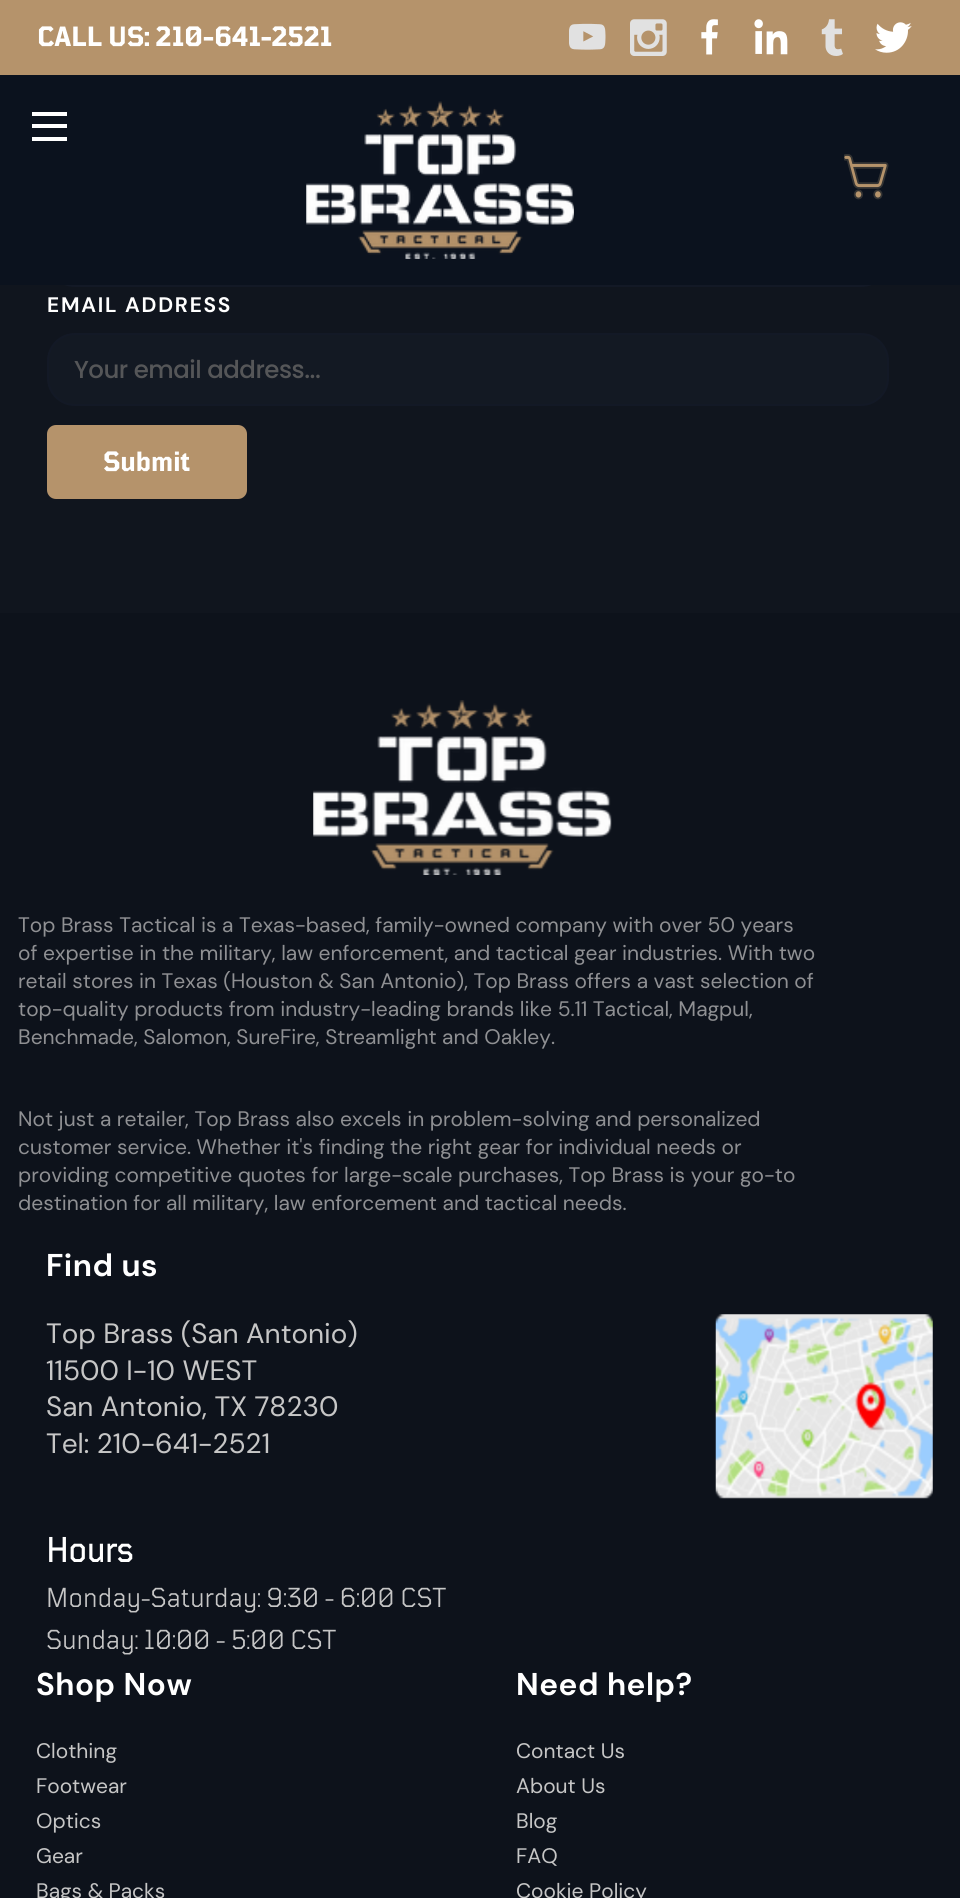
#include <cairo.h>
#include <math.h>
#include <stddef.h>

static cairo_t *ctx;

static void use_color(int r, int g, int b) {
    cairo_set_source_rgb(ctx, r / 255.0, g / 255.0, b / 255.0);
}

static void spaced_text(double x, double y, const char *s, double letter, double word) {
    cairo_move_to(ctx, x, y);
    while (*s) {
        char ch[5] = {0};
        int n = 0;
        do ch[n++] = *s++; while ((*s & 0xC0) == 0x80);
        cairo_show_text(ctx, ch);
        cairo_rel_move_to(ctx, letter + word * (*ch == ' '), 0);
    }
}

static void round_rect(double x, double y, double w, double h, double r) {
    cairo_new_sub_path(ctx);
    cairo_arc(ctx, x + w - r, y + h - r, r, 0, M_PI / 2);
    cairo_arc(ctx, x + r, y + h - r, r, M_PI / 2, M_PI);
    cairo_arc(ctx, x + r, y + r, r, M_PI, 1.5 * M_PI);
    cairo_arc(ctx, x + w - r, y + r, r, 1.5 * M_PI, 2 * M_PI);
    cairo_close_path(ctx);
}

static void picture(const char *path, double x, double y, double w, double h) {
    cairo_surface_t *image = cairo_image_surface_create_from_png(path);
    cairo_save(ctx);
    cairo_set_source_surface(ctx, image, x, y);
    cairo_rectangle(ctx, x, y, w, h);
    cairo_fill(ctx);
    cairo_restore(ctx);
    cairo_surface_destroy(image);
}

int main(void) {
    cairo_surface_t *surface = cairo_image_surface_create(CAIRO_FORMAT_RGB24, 960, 1898);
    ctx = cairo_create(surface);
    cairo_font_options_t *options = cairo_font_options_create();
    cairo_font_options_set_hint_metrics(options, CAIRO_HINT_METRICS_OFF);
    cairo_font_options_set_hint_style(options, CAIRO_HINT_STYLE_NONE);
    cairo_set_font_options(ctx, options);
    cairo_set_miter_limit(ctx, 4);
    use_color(13, 18, 27);
    cairo_paint(ctx);
    use_color(16, 21, 30);
    cairo_rectangle(ctx, 0, 285, 960, 328);
    cairo_fill(ctx);
    round_rect(48, 215, 840, 71, 27);
    use_color(19, 25, 38);
    cairo_stroke(ctx);
    use_color(11, 18, 30);
    cairo_rectangle(ctx, 0, 75, 960, 210);
    cairo_fill(ctx);
    use_color(181, 147, 107);
    cairo_rectangle(ctx, 0, 0, 960, 75);
    cairo_fill(ctx);
    cairo_select_font_face(ctx, "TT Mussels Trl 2", CAIRO_FONT_SLANT_NORMAL, CAIRO_FONT_WEIGHT_BOLD);
    cairo_set_font_size(ctx, 28);
    use_color(255, 255, 255);
    cairo_move_to(ctx, 37, 46);
    cairo_show_text(ctx, "CALL US: 210-641-2521");
    picture("img1.png", 569, 23, 37, 27);
    picture("img2.png", 630, 19, 37, 37);
    picture("img3.png", 701, 19, 17, 36);
    picture("img4.png", 754, 19, 34, 36);
    picture("img5.png", 821, 19, 22, 37);
    picture("img6.png", 875, 22, 37, 31);
    cairo_rectangle(ctx, 32, 124, 35, 4);
    cairo_fill(ctx);
    cairo_rectangle(ctx, 32, 112, 35, 4);
    cairo_fill(ctx);
    cairo_rectangle(ctx, 32, 137, 35, 4);
    cairo_fill(ctx);
    picture("img7.png", 306, 101, 268, 158);
    picture("img8.png", 844, 154, 45, 46);
    cairo_select_font_face(ctx, "DM Sans", CAIRO_FONT_SLANT_NORMAL, CAIRO_FONT_WEIGHT_BOLD);
    cairo_set_font_size(ctx, 21);
    spaced_text(47, 312, "EMAIL ADDRESS", 1.75, 0);
    use_color(19, 25, 35);
    round_rect(48, 334, 840, 71, 27);
    cairo_fill_preserve(ctx);
    use_color(19, 25, 38);
    cairo_stroke(ctx);
    cairo_select_font_face(ctx, "Poppins Medium", CAIRO_FONT_SLANT_NORMAL, CAIRO_FONT_WEIGHT_NORMAL);
    cairo_set_font_size(ctx, 24.5);
    use_color(85, 86, 88);
    spaced_text(74, 378, "Your email address...", -0.5, 0);
    use_color(181, 147, 107);
    round_rect(47, 425, 200, 74, 9);
    cairo_fill(ctx);
    cairo_select_font_face(ctx, "TT Mussels Trl 2", CAIRO_FONT_SLANT_NORMAL, CAIRO_FONT_WEIGHT_BOLD);
    cairo_set_font_size(ctx, 28);
    use_color(255, 255, 255);
    cairo_move_to(ctx, 103, 471);
    cairo_show_text(ctx, "Submit");
    picture("img9.png", 313, 700, 299, 175);
    cairo_select_font_face(ctx, "DM Sans", CAIRO_FONT_SLANT_NORMAL, CAIRO_FONT_WEIGHT_NORMAL);
    cairo_set_font_size(ctx, 21);
    use_color(143, 144, 147);
    cairo_move_to(ctx, 18, 932);
    cairo_show_text(ctx, "Top Brass Tactical is a Texas-based, family-owned company with over 50 years");
    cairo_move_to(ctx, 18, 960);
    cairo_show_text(ctx, "of expertise in the military, law enforcement, and tactical gear industries. With two");
    cairo_move_to(ctx, 18, 988);
    cairo_show_text(ctx, "retail stores in Texas (Houston & San Antonio), Top Brass offers a vast selection of");
    cairo_move_to(ctx, 18, 1016);
    cairo_show_text(ctx, "top-quality products from industry-leading brands like 5.11 Tactical, Magpul,");
    cairo_move_to(ctx, 18, 1044);
    cairo_show_text(ctx, "Benchmade, Salomon, SureFire, Streamlight and Oakley.");
    cairo_move_to(ctx, 18, 1126);
    cairo_show_text(ctx, "Not just a retailer, Top Brass also excels in problem-solving and personalized");
    cairo_move_to(ctx, 18, 1154);
    cairo_show_text(ctx, "customer service. Whether it's finding the right gear for individual needs or");
    cairo_move_to(ctx, 18, 1182);
    cairo_show_text(ctx, "providing competitive quotes for large-scale purchases, Top Brass is your go-to");
    cairo_move_to(ctx, 18, 1210);
    cairo_show_text(ctx, "destination for all military, law enforcement and tactical needs.");
    cairo_select_font_face(ctx, "DM Sans", CAIRO_FONT_SLANT_NORMAL, CAIRO_FONT_WEIGHT_BOLD);
    cairo_set_font_size(ctx, 31.5);
    use_color(255, 255, 255);
    spaced_text(46, 1276, "Find us", 0.5, 0);
    cairo_select_font_face(ctx, "DM Sans", CAIRO_FONT_SLANT_NORMAL, CAIRO_FONT_WEIGHT_NORMAL);
    cairo_set_font_size(ctx, 28);
    use_color(198, 198, 198);
    cairo_move_to(ctx, 46, 1343);
    cairo_show_text(ctx, "Top Brass (San Antonio)");
    cairo_move_to(ctx, 46, 1380);
    cairo_show_text(ctx, "11500 I-10 WEST");
    cairo_move_to(ctx, 46, 1416);
    cairo_show_text(ctx, "San Antonio, TX 78230");
    cairo_move_to(ctx, 46, 1453);
    cairo_show_text(ctx, "Tel: 210-641-2521");
    picture("img10.png", 715, 1314, 218, 185);
    cairo_select_font_face(ctx, "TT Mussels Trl", CAIRO_FONT_SLANT_NORMAL, CAIRO_FONT_WEIGHT_BOLD);
    cairo_set_font_size(ctx, 35);
    use_color(255, 255, 255);
    cairo_move_to(ctx, 46, 1562);
    cairo_show_text(ctx, "Hours");
    cairo_select_font_face(ctx, "TT Mussels Trl", CAIRO_FONT_SLANT_NORMAL, CAIRO_FONT_WEIGHT_NORMAL);
    cairo_set_font_size(ctx, 28);
    use_color(198, 198, 198);
    cairo_move_to(ctx, 46, 1607);
    cairo_show_text(ctx, "Monday-Saturday: 9:30 - 6:00 CST");
    cairo_move_to(ctx, 46, 1649);
    cairo_show_text(ctx, "Sunday: 10:00 - 5:00 CST");
    cairo_select_font_face(ctx, "DM Sans", CAIRO_FONT_SLANT_NORMAL, CAIRO_FONT_WEIGHT_BOLD);
    cairo_set_font_size(ctx, 31.5);
    use_color(255, 255, 255);
    spaced_text(36, 1695, "Shop Now", 0.5, 0);
    cairo_select_font_face(ctx, "DM Sans", CAIRO_FONT_SLANT_NORMAL, CAIRO_FONT_WEIGHT_NORMAL);
    cairo_set_font_size(ctx, 21);
    use_color(198, 198, 198);
    cairo_move_to(ctx, 36, 1758);
    cairo_show_text(ctx, "Clothing");
    cairo_move_to(ctx, 36, 1793);
    cairo_show_text(ctx, "Footwear");
    cairo_move_to(ctx, 36, 1828);
    cairo_show_text(ctx, "Optics");
    cairo_move_to(ctx, 36, 1863);
    cairo_show_text(ctx, "Gear");
    cairo_move_to(ctx, 36, 1898);
    cairo_show_text(ctx, "Bags & Packs");
    cairo_select_font_face(ctx, "DM Sans", CAIRO_FONT_SLANT_NORMAL, CAIRO_FONT_WEIGHT_BOLD);
    cairo_set_font_size(ctx, 31.5);
    use_color(255, 255, 255);
    spaced_text(516, 1695, "Need help?", 0.5, 0);
    cairo_select_font_face(ctx, "DM Sans", CAIRO_FONT_SLANT_NORMAL, CAIRO_FONT_WEIGHT_NORMAL);
    cairo_set_font_size(ctx, 21);
    use_color(198, 198, 198);
    cairo_move_to(ctx, 516, 1758);
    cairo_show_text(ctx, "Contact Us");
    cairo_move_to(ctx, 516, 1793);
    cairo_show_text(ctx, "About Us");
    cairo_move_to(ctx, 516, 1828);
    cairo_show_text(ctx, "Blog");
    cairo_move_to(ctx, 516, 1863);
    cairo_show_text(ctx, "FAQ");
    cairo_move_to(ctx, 516, 1898);
    cairo_show_text(ctx, "Cookie Policy");
    cairo_surface_write_to_png(surface, "result.png");
    cairo_font_options_destroy(options);
    cairo_destroy(ctx);
    cairo_surface_destroy(surface);
    return 0;
}
